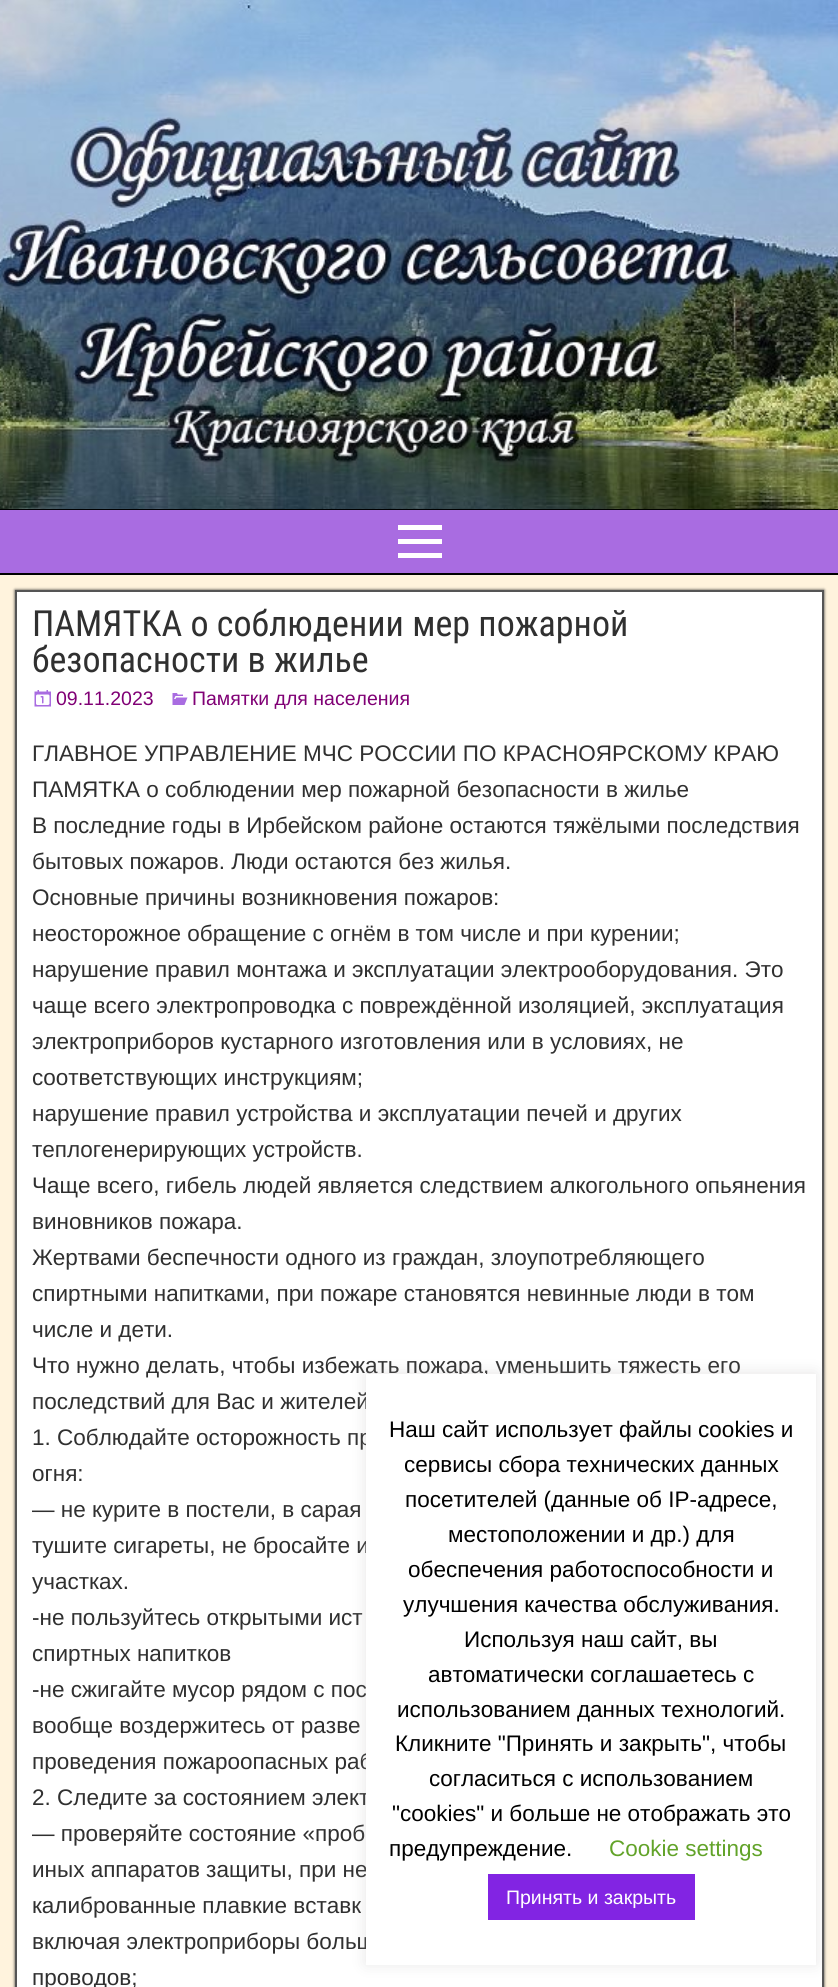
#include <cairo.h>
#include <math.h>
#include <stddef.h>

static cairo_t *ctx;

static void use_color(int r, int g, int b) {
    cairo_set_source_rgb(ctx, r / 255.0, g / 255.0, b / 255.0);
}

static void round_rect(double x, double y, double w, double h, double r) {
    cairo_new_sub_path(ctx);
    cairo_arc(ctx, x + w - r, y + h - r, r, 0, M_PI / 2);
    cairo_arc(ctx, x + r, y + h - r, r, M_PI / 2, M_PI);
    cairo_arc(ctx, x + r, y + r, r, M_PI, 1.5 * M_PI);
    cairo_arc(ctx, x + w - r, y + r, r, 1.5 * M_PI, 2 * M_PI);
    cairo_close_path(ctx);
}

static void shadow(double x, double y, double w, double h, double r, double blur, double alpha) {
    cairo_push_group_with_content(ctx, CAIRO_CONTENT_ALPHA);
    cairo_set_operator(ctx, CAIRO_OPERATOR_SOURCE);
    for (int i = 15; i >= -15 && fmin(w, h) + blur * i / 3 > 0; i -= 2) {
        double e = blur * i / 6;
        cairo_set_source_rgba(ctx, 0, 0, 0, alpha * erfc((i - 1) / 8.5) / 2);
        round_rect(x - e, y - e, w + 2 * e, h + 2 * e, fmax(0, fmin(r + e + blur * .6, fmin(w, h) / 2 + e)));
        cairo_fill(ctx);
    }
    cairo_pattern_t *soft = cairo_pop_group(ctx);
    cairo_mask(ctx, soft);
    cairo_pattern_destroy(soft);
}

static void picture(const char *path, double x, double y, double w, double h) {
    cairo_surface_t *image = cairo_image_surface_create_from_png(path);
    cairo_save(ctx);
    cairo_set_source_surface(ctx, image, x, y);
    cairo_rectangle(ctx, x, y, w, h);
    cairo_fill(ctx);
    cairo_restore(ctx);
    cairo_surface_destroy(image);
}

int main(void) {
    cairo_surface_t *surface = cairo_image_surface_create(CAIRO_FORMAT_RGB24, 838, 1987);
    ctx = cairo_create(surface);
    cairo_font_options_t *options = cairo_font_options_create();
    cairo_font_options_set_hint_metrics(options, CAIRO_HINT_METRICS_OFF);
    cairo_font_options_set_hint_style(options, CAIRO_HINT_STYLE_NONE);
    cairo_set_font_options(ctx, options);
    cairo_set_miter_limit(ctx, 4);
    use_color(255, 255, 255);
    cairo_paint(ctx);
    picture("img1.png", 0, 0, 838, 509);
    use_color(0, 0, 0);
    cairo_rectangle(ctx, 0, 509, 838, 1);
    cairo_fill(ctx);
    use_color(169, 108, 225);
    cairo_rectangle(ctx, 0, 510, 838, 63);
    cairo_fill(ctx);
    use_color(0, 0, 0);
    cairo_rectangle(ctx, 0, 573, 838, 2);
    cairo_fill(ctx);
    use_color(255, 255, 255);
    cairo_new_path(ctx);
    cairo_move_to(ctx, 398, 558);
    cairo_line_to(ctx, 398, 553);
    cairo_line_to(ctx, 442, 553);
    cairo_line_to(ctx, 442, 558);
    cairo_close_path(ctx);
    cairo_move_to(ctx, 398, 525);
    cairo_line_to(ctx, 442, 525);
    cairo_line_to(ctx, 442, 530);
    cairo_line_to(ctx, 398, 530);
    cairo_close_path(ctx);
    cairo_move_to(ctx, 398, 544);
    cairo_line_to(ctx, 398, 539);
    cairo_line_to(ctx, 442, 539);
    cairo_line_to(ctx, 442, 544);
    cairo_close_path(ctx);
    cairo_fill(ctx);
    use_color(255, 243, 221);
    cairo_rectangle(ctx, 0, 575, 838, 1412);
    cairo_fill(ctx);
    use_color(51, 51, 51);
    shadow(15, 590, 809, 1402, 0, 1.5, 1);
    use_color(255, 255, 255);
    cairo_rectangle(ctx, 16, 591, 807, 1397);
    cairo_fill_preserve(ctx);
    use_color(85, 85, 85);
    cairo_stroke(ctx);
    cairo_select_font_face(ctx, "Roboto Condensed", CAIRO_FONT_SLANT_NORMAL, CAIRO_FONT_WEIGHT_NORMAL);
    cairo_set_font_size(ctx, 36);
    use_color(48, 48, 48);
    cairo_move_to(ctx, 32, 636);
    cairo_show_text(ctx, "ПАМЯТКА о соблюдении мер пожарной");
    cairo_move_to(ctx, 32, 672);
    cairo_show_text(ctx, "безопасности в жилье");
    picture("img2.png", 34, 690, 17, 17);
    cairo_select_font_face(ctx, "Liberation Sans", CAIRO_FONT_SLANT_NORMAL, CAIRO_FONT_WEIGHT_NORMAL);
    cairo_set_font_size(ctx, 19.5);
    use_color(128, 0, 117);
    cairo_move_to(ctx, 56, 705);
    cairo_show_text(ctx, "09.11.2023");
    picture("img3.png", 172, 693, 16, 12);
    cairo_move_to(ctx, 192, 705);
    cairo_show_text(ctx, "Памятки для населения");
    cairo_select_font_face(ctx, "Arimo", CAIRO_FONT_SLANT_NORMAL, CAIRO_FONT_WEIGHT_NORMAL);
    cairo_set_font_size(ctx, 22.5);
    use_color(48, 48, 48);
    cairo_move_to(ctx, 32, 761);
    cairo_show_text(ctx, "ГЛАВНОЕ УПРАВЛЕНИЕ МЧС РОССИИ ПО КРАСНОЯРСКОМУ КРАЮ");
    cairo_move_to(ctx, 32, 797);
    cairo_show_text(ctx, "ПАМЯТКА о соблюдении мер пожарной безопасности в жилье");
    cairo_move_to(ctx, 32, 833);
    cairo_show_text(ctx, "В последние годы в Ирбейском районе остаются тяжёлыми последствия");
    cairo_move_to(ctx, 32, 869);
    cairo_show_text(ctx, "бытовых пожаров. Люди остаются без жилья.");
    cairo_move_to(ctx, 32, 905);
    cairo_show_text(ctx, "Основные причины возникновения пожаров:");
    cairo_move_to(ctx, 32, 941);
    cairo_show_text(ctx, "неосторожное обращение с огнём в том числе и при курении;");
    cairo_move_to(ctx, 32, 977);
    cairo_show_text(ctx, "нарушение правил монтажа и эксплуатации электрооборудования. Это");
    cairo_move_to(ctx, 32, 1013);
    cairo_show_text(ctx, "чаще всего электропроводка с повреждённой изоляцией, эксплуатация");
    cairo_move_to(ctx, 32, 1049);
    cairo_show_text(ctx, "электроприборов кустарного изготовления или в условиях, не");
    cairo_move_to(ctx, 32, 1085);
    cairo_show_text(ctx, "соответствующих инструкциям;");
    cairo_move_to(ctx, 32, 1121);
    cairo_show_text(ctx, "нарушение правил устройства и эксплуатации печей и других");
    cairo_move_to(ctx, 32, 1157);
    cairo_show_text(ctx, "теплогенерирующих устройств.");
    cairo_move_to(ctx, 32, 1193);
    cairo_show_text(ctx, "Чаще всего, гибель людей является следствием алкогольного опьянения");
    cairo_move_to(ctx, 32, 1229);
    cairo_show_text(ctx, "виновников пожара.");
    cairo_move_to(ctx, 32, 1265);
    cairo_show_text(ctx, "Жертвами беспечности одного из граждан, злоупотребляющего");
    cairo_move_to(ctx, 32, 1301);
    cairo_show_text(ctx, "спиртными напитками, при пожаре становятся невинные люди в том");
    cairo_move_to(ctx, 32, 1337);
    cairo_show_text(ctx, "числе и дети.");
    cairo_move_to(ctx, 32, 1373);
    cairo_show_text(ctx, "Что нужно делать, чтобы избежать пожара, уменьшить тяжесть его");
    cairo_move_to(ctx, 32, 1409);
    cairo_show_text(ctx, "последствий для Вас и жителей");
    cairo_move_to(ctx, 32, 1445);
    cairo_show_text(ctx, "1. Соблюдайте осторожность пр");
    cairo_move_to(ctx, 32, 1481);
    cairo_show_text(ctx, "огня:");
    cairo_move_to(ctx, 32, 1517);
    cairo_show_text(ctx, "— не курите в постели, в сарая");
    cairo_move_to(ctx, 32, 1553);
    cairo_show_text(ctx, "тушите сигареты, не бросайте и");
    cairo_move_to(ctx, 32, 1589);
    cairo_show_text(ctx, "участках.");
    cairo_move_to(ctx, 32, 1625);
    cairo_show_text(ctx, "-не пользуйтесь открытыми ист");
    cairo_move_to(ctx, 32, 1661);
    cairo_show_text(ctx, "спиртных напитков");
    cairo_move_to(ctx, 32, 1697);
    cairo_show_text(ctx, "-не сжигайте мусор рядом с пос");
    cairo_move_to(ctx, 32, 1733);
    cairo_show_text(ctx, "вообще воздержитесь от разве");
    cairo_move_to(ctx, 32, 1769);
    cairo_show_text(ctx, "проведения пожароопасных раб");
    cairo_move_to(ctx, 32, 1805);
    cairo_show_text(ctx, "2. Следите за состоянием элект");
    cairo_move_to(ctx, 32, 1841);
    cairo_show_text(ctx, "— проверяйте состояние «проб");
    cairo_move_to(ctx, 32, 1877);
    cairo_show_text(ctx, "иных аппаратов защиты, при не");
    cairo_move_to(ctx, 32, 1913);
    cairo_show_text(ctx, "калиброванные плавкие вставк");
    cairo_move_to(ctx, 32, 1949);
    cairo_show_text(ctx, "включая электроприборы больш");
    cairo_move_to(ctx, 32, 1985);
    cairo_show_text(ctx, "проводов;");
    use_color(172, 171, 171);
    shadow(366, 1373, 450, 591, 0, 7.5, 0.3);
    use_color(255, 255, 255);
    cairo_rectangle(ctx, 366, 1374, 450, 591);
    cairo_fill(ctx);
    cairo_select_font_face(ctx, "Liberation Sans", CAIRO_FONT_SLANT_NORMAL, CAIRO_FONT_WEIGHT_NORMAL);
    use_color(0, 0, 0);
    cairo_move_to(ctx, 389, 1437);
    cairo_show_text(ctx, "Наш сайт использует файлы cookies и");
    cairo_move_to(ctx, 404, 1472);
    cairo_show_text(ctx, "сервисы сбора технических данных");
    cairo_move_to(ctx, 405, 1507);
    cairo_show_text(ctx, "посетителей (данные об IP-адресе,");
    cairo_move_to(ctx, 448, 1542);
    cairo_show_text(ctx, "местоположении и др.) для");
    cairo_move_to(ctx, 408, 1577);
    cairo_show_text(ctx, "обеспечения работоспособности и");
    cairo_move_to(ctx, 403, 1612);
    cairo_show_text(ctx, "улучшения качества обслуживания.");
    cairo_move_to(ctx, 464, 1647);
    cairo_show_text(ctx, "Используя наш сайт, вы");
    cairo_move_to(ctx, 428, 1682);
    cairo_show_text(ctx, "автоматически соглашаетесь с");
    cairo_move_to(ctx, 397, 1717);
    cairo_show_text(ctx, "использованием данных технологий.");
    cairo_move_to(ctx, 395, 1751);
    cairo_show_text(ctx, "Кликните \"Принять и закрыть\", чтобы");
    cairo_move_to(ctx, 429, 1786);
    cairo_show_text(ctx, "согласиться с использованием");
    cairo_move_to(ctx, 392, 1821);
    cairo_show_text(ctx, "\"cookies\" и больше не отображать это");
    cairo_move_to(ctx, 389, 1856);
    cairo_show_text(ctx, "предупреждение.");
    use_color(98, 163, 41);
    cairo_move_to(ctx, 609, 1856);
    cairo_show_text(ctx, "Cookie settings");
    use_color(130, 36, 227);
    cairo_rectangle(ctx, 488, 1874, 207, 46);
    cairo_fill(ctx);
    cairo_set_font_size(ctx, 19.5);
    use_color(255, 255, 255);
    cairo_move_to(ctx, 506, 1904);
    cairo_show_text(ctx, "Принять и закрыть");
    cairo_surface_write_to_png(surface, "result.png");
    cairo_font_options_destroy(options);
    cairo_destroy(ctx);
    cairo_surface_destroy(surface);
    return 0;
}
